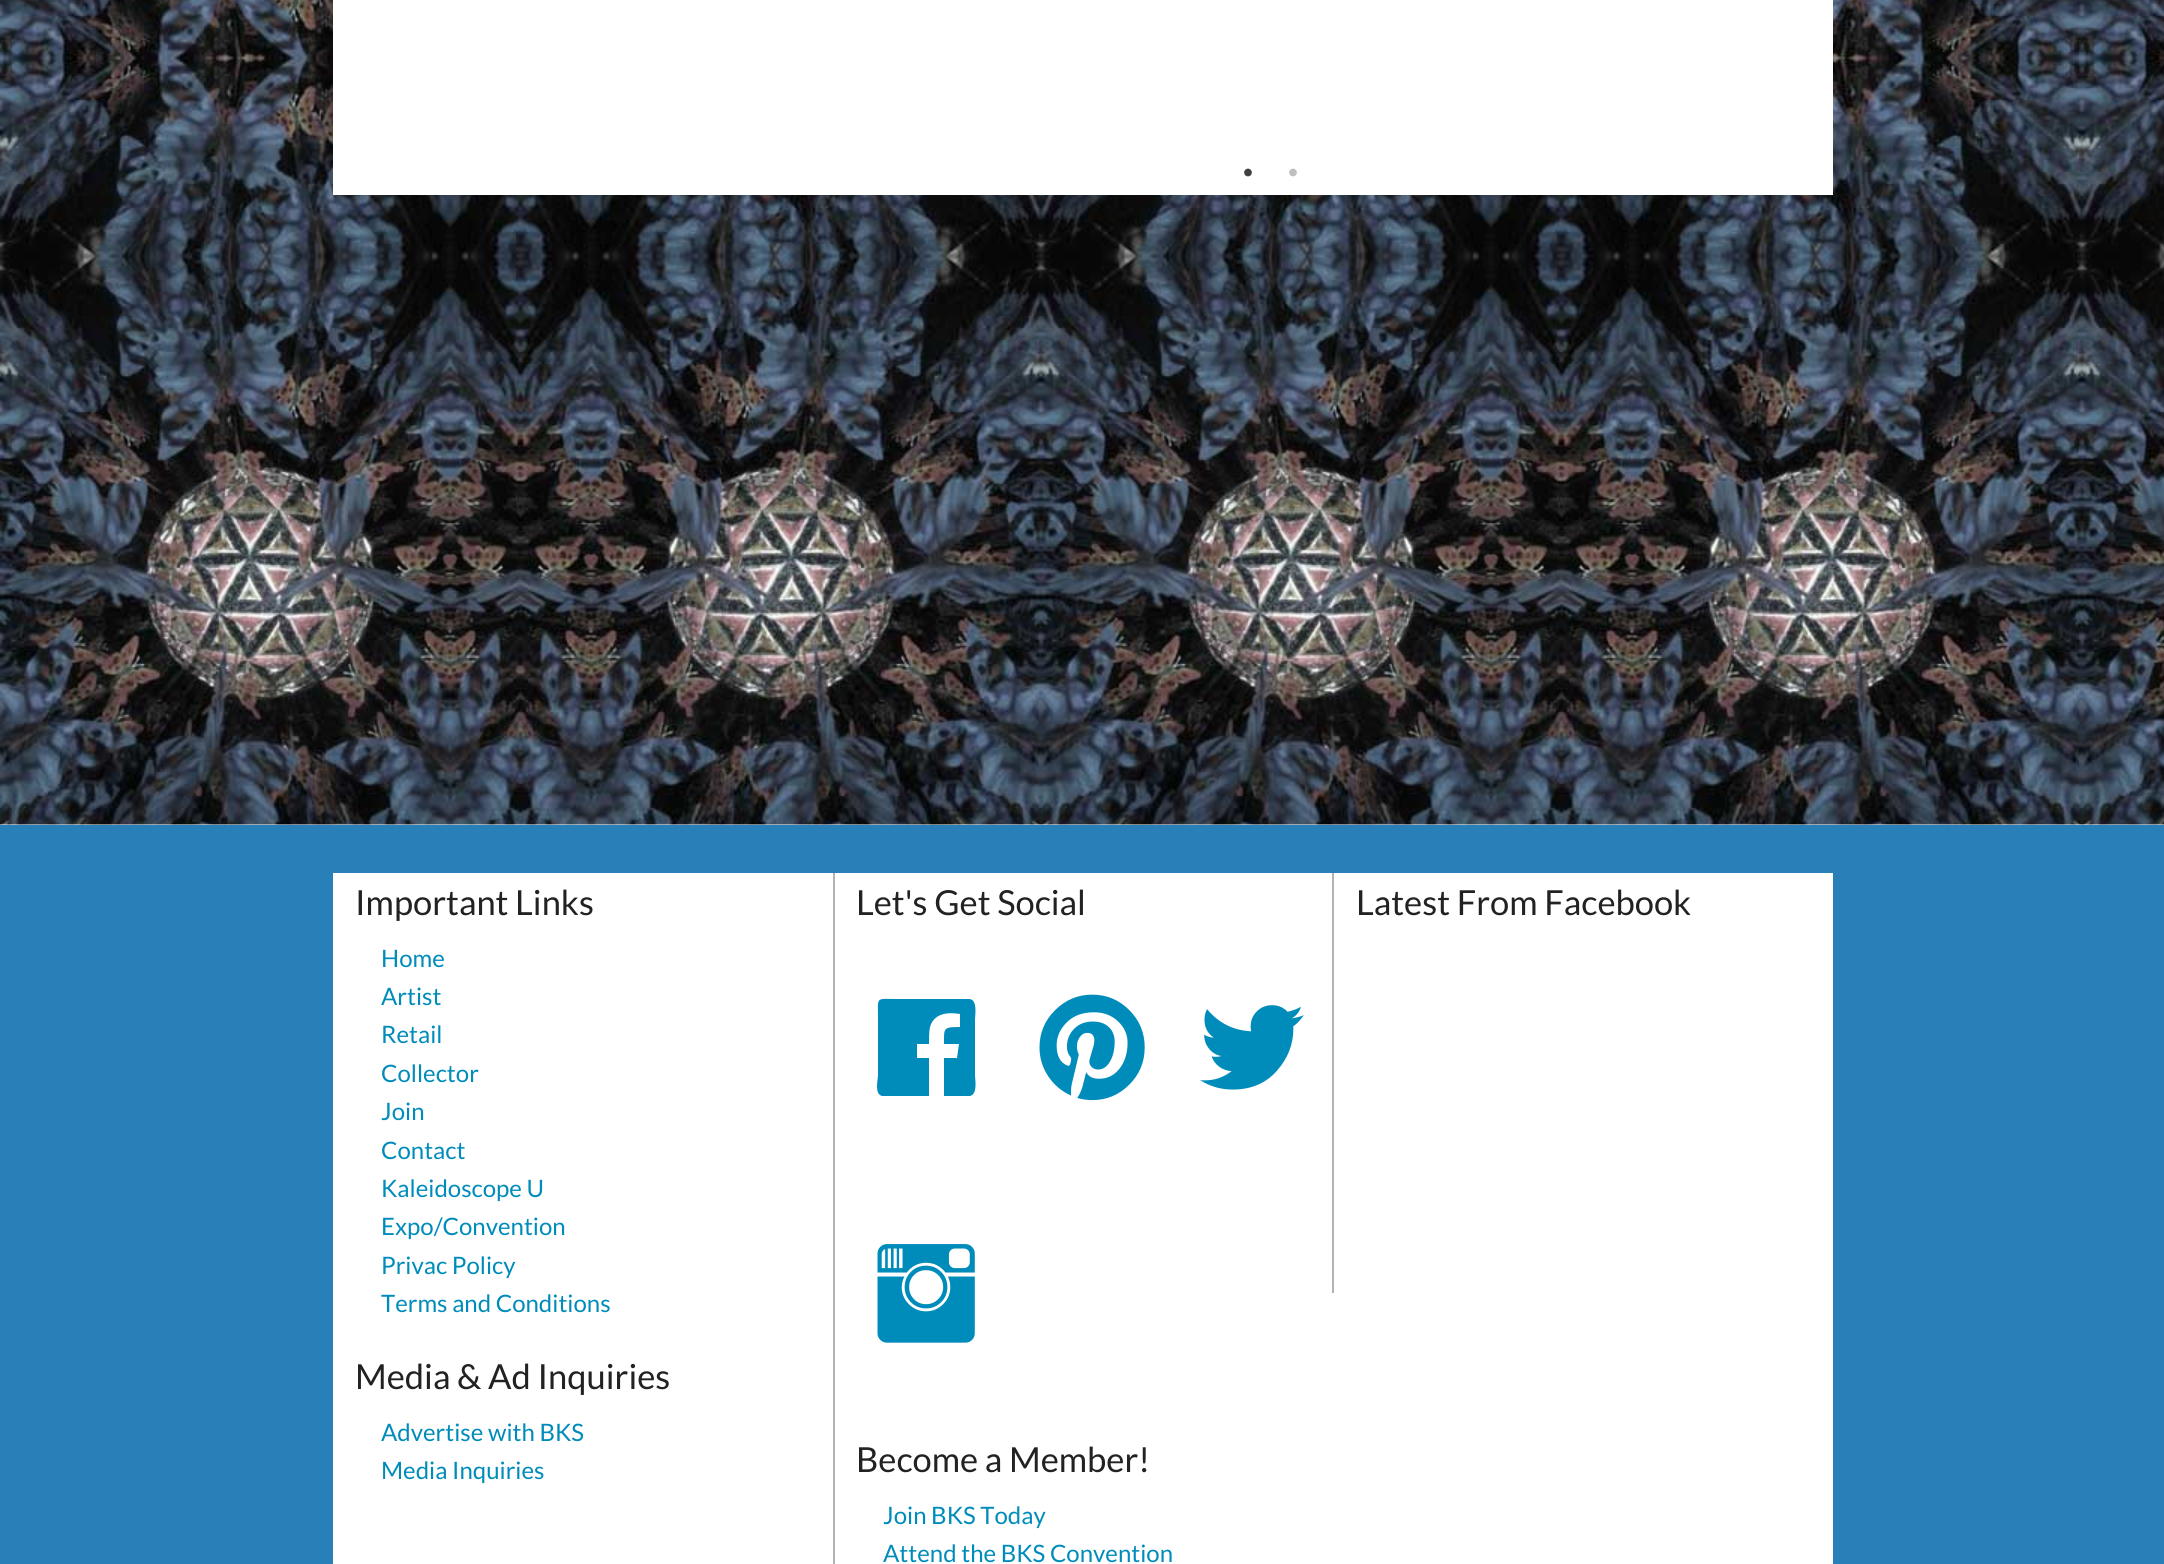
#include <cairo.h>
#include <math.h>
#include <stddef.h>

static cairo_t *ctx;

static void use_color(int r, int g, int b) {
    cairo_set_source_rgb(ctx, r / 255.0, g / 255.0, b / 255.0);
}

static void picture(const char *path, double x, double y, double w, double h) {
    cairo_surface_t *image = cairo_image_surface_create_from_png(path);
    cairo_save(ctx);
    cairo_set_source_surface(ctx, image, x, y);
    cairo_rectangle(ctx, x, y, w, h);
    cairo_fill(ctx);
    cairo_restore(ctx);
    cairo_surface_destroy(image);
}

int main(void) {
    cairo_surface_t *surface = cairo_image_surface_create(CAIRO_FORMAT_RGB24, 2164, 1564);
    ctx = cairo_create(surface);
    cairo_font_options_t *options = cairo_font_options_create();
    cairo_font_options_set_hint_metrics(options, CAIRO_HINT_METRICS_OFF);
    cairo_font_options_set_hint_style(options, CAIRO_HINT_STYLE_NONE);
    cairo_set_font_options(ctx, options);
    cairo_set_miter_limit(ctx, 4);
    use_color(255, 255, 255);
    cairo_paint(ctx);
    picture("img1.png", 0, 0, 2164, 825);
    use_color(255, 255, 255);
    cairo_rectangle(ctx, 333, 0, 1500, 195);
    cairo_fill(ctx);
    picture("img2.png", 1244, 168, 8, 9);
    picture("img3.png", 1289, 168, 8, 9);
    use_color(41, 128, 185);
    cairo_rectangle(ctx, 0, 825, 2164, 739);
    cairo_fill(ctx);
    use_color(255, 255, 255);
    cairo_rectangle(ctx, 333, 873, 1500, 691);
    cairo_fill(ctx);
    cairo_select_font_face(ctx, "Lato", CAIRO_FONT_SLANT_NORMAL, CAIRO_FONT_WEIGHT_NORMAL);
    cairo_set_font_size(ctx, 34.5);
    use_color(34, 34, 34);
    cairo_move_to(ctx, 355, 915);
    cairo_show_text(ctx, "Important Links");
    cairo_set_font_size(ctx, 24);
    use_color(0, 140, 186);
    cairo_move_to(ctx, 381, 967);
    cairo_show_text(ctx, "Home");
    cairo_move_to(ctx, 381, 1005);
    cairo_show_text(ctx, "Artist");
    cairo_move_to(ctx, 381, 1043);
    cairo_show_text(ctx, "Retail");
    cairo_move_to(ctx, 381, 1082);
    cairo_show_text(ctx, "Collector");
    cairo_move_to(ctx, 381, 1120);
    cairo_show_text(ctx, "Join");
    cairo_move_to(ctx, 381, 1159);
    cairo_show_text(ctx, "Contact");
    cairo_move_to(ctx, 381, 1197);
    cairo_show_text(ctx, "Kaleidoscope U");
    cairo_move_to(ctx, 381, 1235);
    cairo_show_text(ctx, "Expo/Convention");
    cairo_move_to(ctx, 381, 1274);
    cairo_show_text(ctx, "Privac Policy");
    cairo_move_to(ctx, 381, 1312);
    cairo_show_text(ctx, "Terms and Conditions");
    cairo_set_font_size(ctx, 34.5);
    use_color(34, 34, 34);
    cairo_move_to(ctx, 355, 1389);
    cairo_show_text(ctx, "Media & Ad Inquiries");
    cairo_set_font_size(ctx, 24);
    use_color(0, 140, 186);
    cairo_move_to(ctx, 381, 1441);
    cairo_show_text(ctx, "Advertise with BKS");
    cairo_move_to(ctx, 381, 1479);
    cairo_show_text(ctx, "Media Inquiries");
    use_color(179, 179, 179);
    cairo_rectangle(ctx, 833, 873, 2, 691);
    cairo_fill(ctx);
    cairo_set_font_size(ctx, 34.5);
    use_color(34, 34, 34);
    cairo_move_to(ctx, 856, 915);
    cairo_show_text(ctx, "Let's Get Social");
    use_color(0, 140, 186);
    cairo_new_path(ctx);
    cairo_move_to(ctx, 969, 999);
    cairo_curve_to(ctx, 978, 999, 975, 1016, 975, 1019);
    cairo_line_to(ctx, 975, 1076);
    cairo_curve_to(ctx, 975, 1079, 978, 1094, 970, 1096);
    cairo_line_to(ctx, 944, 1096);
    cairo_line_to(ctx, 944, 1058);
    cairo_line_to(ctx, 957, 1058);
    cairo_line_to(ctx, 959, 1044);
    cairo_line_to(ctx, 944, 1044);
    cairo_curve_to(ctx, 944, 1028, 943, 1027, 960, 1027);
    cairo_line_to(ctx, 960, 1014);
    cairo_curve_to(ctx, 948, 1012, 934, 1013, 930, 1027);
    cairo_curve_to(ctx, 929, 1032, 929, 1038, 929, 1044);
    cairo_line_to(ctx, 917, 1044);
    cairo_line_to(ctx, 917, 1058);
    cairo_line_to(ctx, 929, 1058);
    cairo_line_to(ctx, 929, 1096);
    cairo_line_to(ctx, 882, 1096);
    cairo_curve_to(ctx, 874, 1094, 878, 1079, 878, 1076);
    cairo_line_to(ctx, 878, 1019);
    cairo_curve_to(ctx, 878, 996, 875, 999, 897, 999);
    cairo_close_path(ctx);
    cairo_fill(ctx);
    picture("img4.png", 1039, 994, 106, 107);
    picture("img5.png", 1200, 1005, 104, 85);
    picture("img6.png", 877, 1244, 98, 99);
    use_color(34, 34, 34);
    cairo_move_to(ctx, 856, 1472);
    cairo_show_text(ctx, "Become a Member!");
    cairo_set_font_size(ctx, 24);
    use_color(0, 140, 186);
    cairo_move_to(ctx, 883, 1524);
    cairo_show_text(ctx, "Join BKS Today");
    cairo_move_to(ctx, 883, 1562);
    cairo_show_text(ctx, "Attend the BKS Convention");
    use_color(179, 179, 179);
    cairo_rectangle(ctx, 1332, 873, 2, 420);
    cairo_fill(ctx);
    cairo_set_font_size(ctx, 34.5);
    use_color(34, 34, 34);
    cairo_move_to(ctx, 1356, 915);
    cairo_show_text(ctx, "Latest From Facebook");
    cairo_surface_write_to_png(surface, "result.png");
    cairo_font_options_destroy(options);
    cairo_destroy(ctx);
    cairo_surface_destroy(surface);
    return 0;
}
